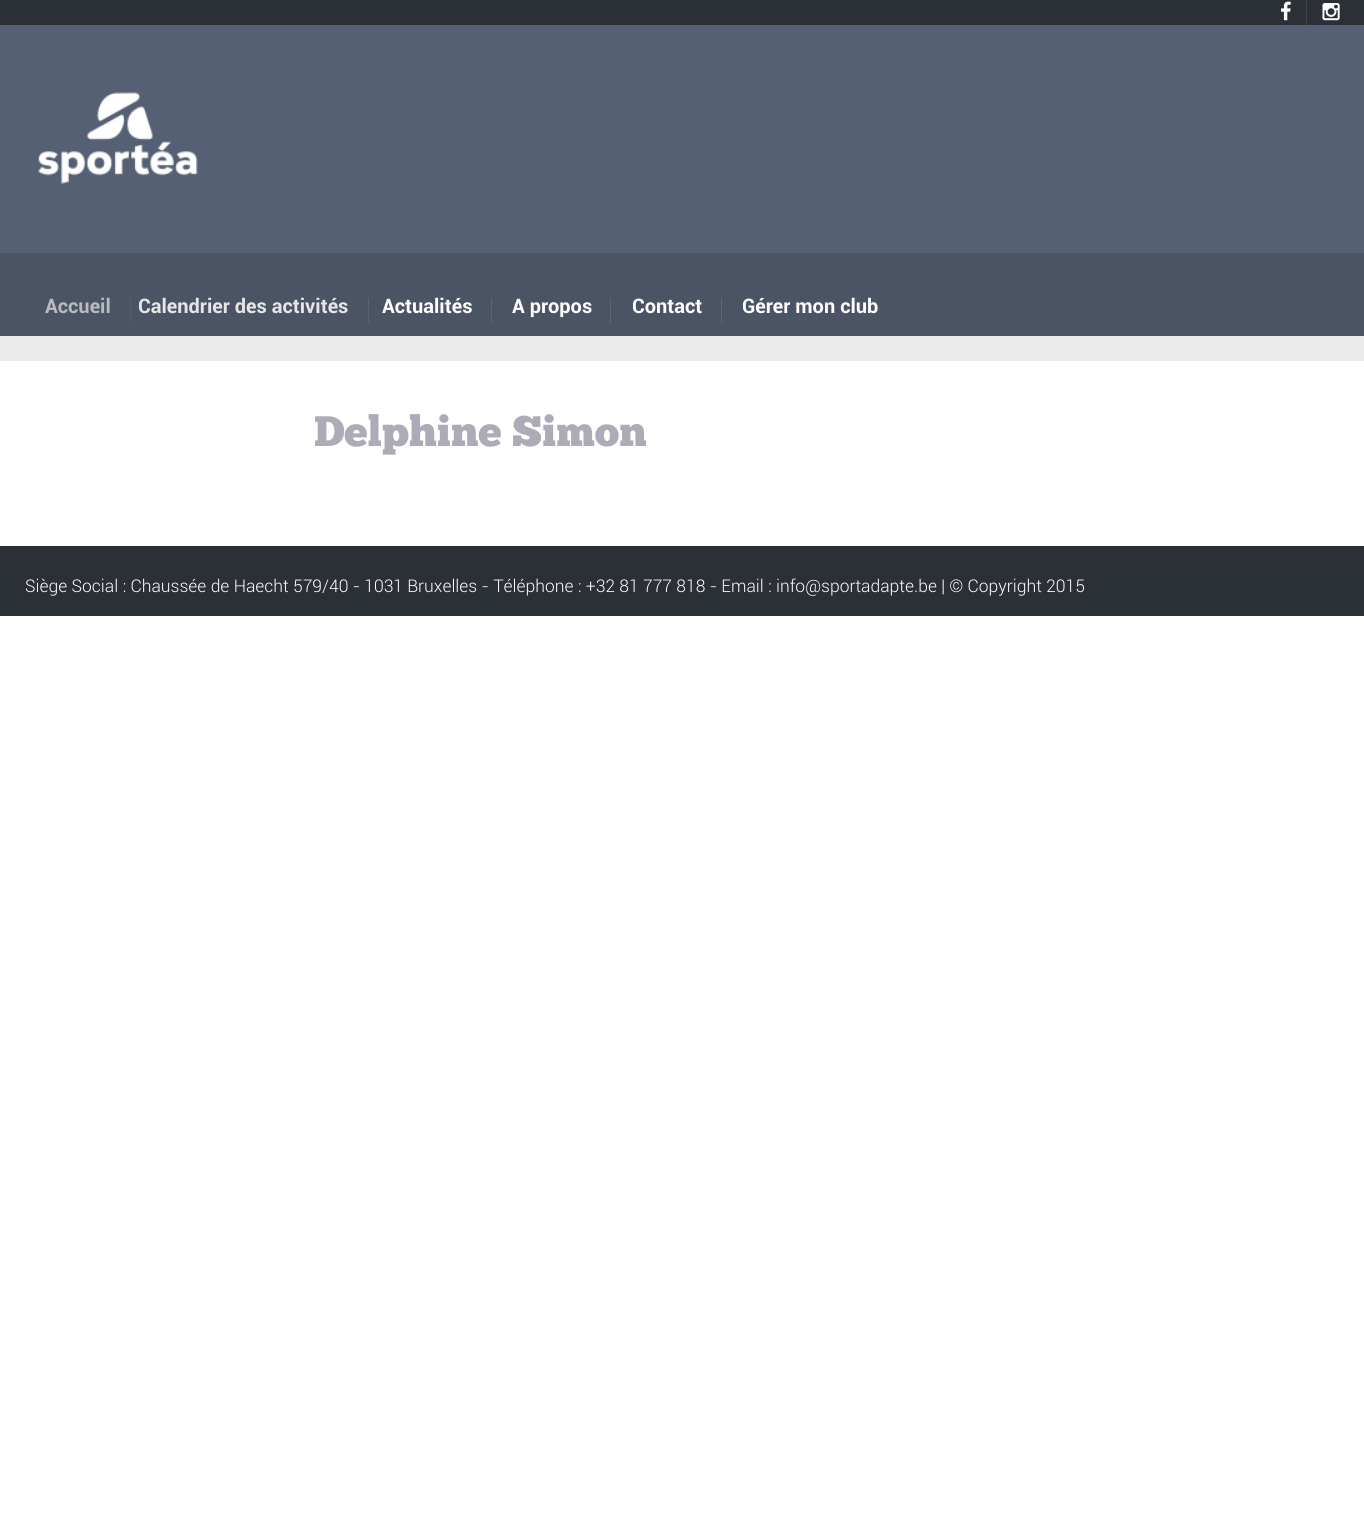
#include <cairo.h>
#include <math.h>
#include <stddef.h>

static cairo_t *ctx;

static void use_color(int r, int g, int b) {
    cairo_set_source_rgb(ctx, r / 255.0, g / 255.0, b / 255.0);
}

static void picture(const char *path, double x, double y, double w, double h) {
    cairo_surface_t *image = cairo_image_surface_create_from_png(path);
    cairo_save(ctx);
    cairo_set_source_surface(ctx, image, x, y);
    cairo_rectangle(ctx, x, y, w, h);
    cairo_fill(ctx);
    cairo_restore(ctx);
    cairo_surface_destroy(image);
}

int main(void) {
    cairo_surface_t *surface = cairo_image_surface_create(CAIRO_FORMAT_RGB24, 1364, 1520);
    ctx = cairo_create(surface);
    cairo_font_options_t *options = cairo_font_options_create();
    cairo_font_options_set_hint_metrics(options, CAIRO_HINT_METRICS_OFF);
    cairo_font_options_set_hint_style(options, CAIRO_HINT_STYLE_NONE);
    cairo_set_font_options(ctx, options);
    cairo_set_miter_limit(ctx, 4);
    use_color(255, 255, 255);
    cairo_paint(ctx);
    use_color(43, 47, 54);
    cairo_rectangle(ctx, 0, 0, 1364, 25);
    cairo_fill(ctx);
    use_color(64, 68, 74);
    cairo_rectangle(ctx, 1306, 0, 1, 25);
    cairo_fill(ctx);
    picture("img1.png", 1281, 1, 10, 20);
    picture("img2.png", 1322, 3, 18, 18);
    use_color(85, 96, 116);
    cairo_rectangle(ctx, 0, 25, 1364, 228);
    cairo_fill(ctx);
    picture("img3.png", 37, 92, 161, 92);
    use_color(75, 84, 100);
    cairo_rectangle(ctx, 0, 253, 1364, 83);
    cairo_fill(ctx);
    cairo_select_font_face(ctx, "Roboto", CAIRO_FONT_SLANT_NORMAL, CAIRO_FONT_WEIGHT_BOLD);
    cairo_set_font_size(ctx, 20);
    use_color(183, 186, 193);
    cairo_move_to(ctx, 45, 313);
    cairo_show_text(ctx, "Accueil");
    use_color(86, 94, 109);
    cairo_rectangle(ctx, 130, 298, 1, 25);
    cairo_fill(ctx);
    use_color(229, 230, 232);
    cairo_move_to(ctx, 138, 313);
    cairo_show_text(ctx, "Calendrier des activités");
    use_color(90, 99, 113);
    cairo_rectangle(ctx, 368, 298, 1, 25);
    cairo_fill(ctx);
    use_color(252, 252, 252);
    cairo_move_to(ctx, 382, 313);
    cairo_show_text(ctx, "Actualités");
    use_color(93, 101, 115);
    cairo_rectangle(ctx, 491, 298, 1, 25);
    cairo_fill(ctx);
    use_color(252, 252, 252);
    cairo_move_to(ctx, 512, 313);
    cairo_show_text(ctx, "A propos");
    use_color(93, 101, 116);
    cairo_rectangle(ctx, 610, 298, 1, 25);
    cairo_fill(ctx);
    use_color(252, 252, 252);
    cairo_move_to(ctx, 632, 313);
    cairo_show_text(ctx, "Contact");
    use_color(93, 101, 116);
    cairo_rectangle(ctx, 721, 298, 1, 25);
    cairo_fill(ctx);
    use_color(252, 252, 252);
    cairo_move_to(ctx, 742, 313);
    cairo_show_text(ctx, "Gérer mon club");
    use_color(234, 234, 234);
    cairo_rectangle(ctx, 0, 336, 1364, 25);
    cairo_fill(ctx);
    cairo_select_font_face(ctx, "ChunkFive", CAIRO_FONT_SLANT_NORMAL, CAIRO_FONT_WEIGHT_NORMAL);
    cairo_set_font_size(ctx, 42.5);
    use_color(172, 172, 184);
    cairo_move_to(ctx, 314, 446);
    cairo_show_text(ctx, "Delphine Simon");
    use_color(43, 47, 54);
    cairo_rectangle(ctx, 0, 546, 1364, 70);
    cairo_fill(ctx);
    cairo_select_font_face(ctx, "Roboto Light", CAIRO_FONT_SLANT_NORMAL, CAIRO_FONT_WEIGHT_NORMAL);
    cairo_set_font_size(ctx, 17.5);
    use_color(252, 252, 252);
    cairo_move_to(ctx, 25, 592);
    cairo_show_text(ctx, "Siège Social : Chaussée de Haecht 579/40 - 1031 Bruxelles - Téléphone : +32 81 777 818 - Email : info@sportadapte.be | © Copyright 2015");
    cairo_surface_write_to_png(surface, "result.png");
    cairo_font_options_destroy(options);
    cairo_destroy(ctx);
    cairo_surface_destroy(surface);
    return 0;
}
